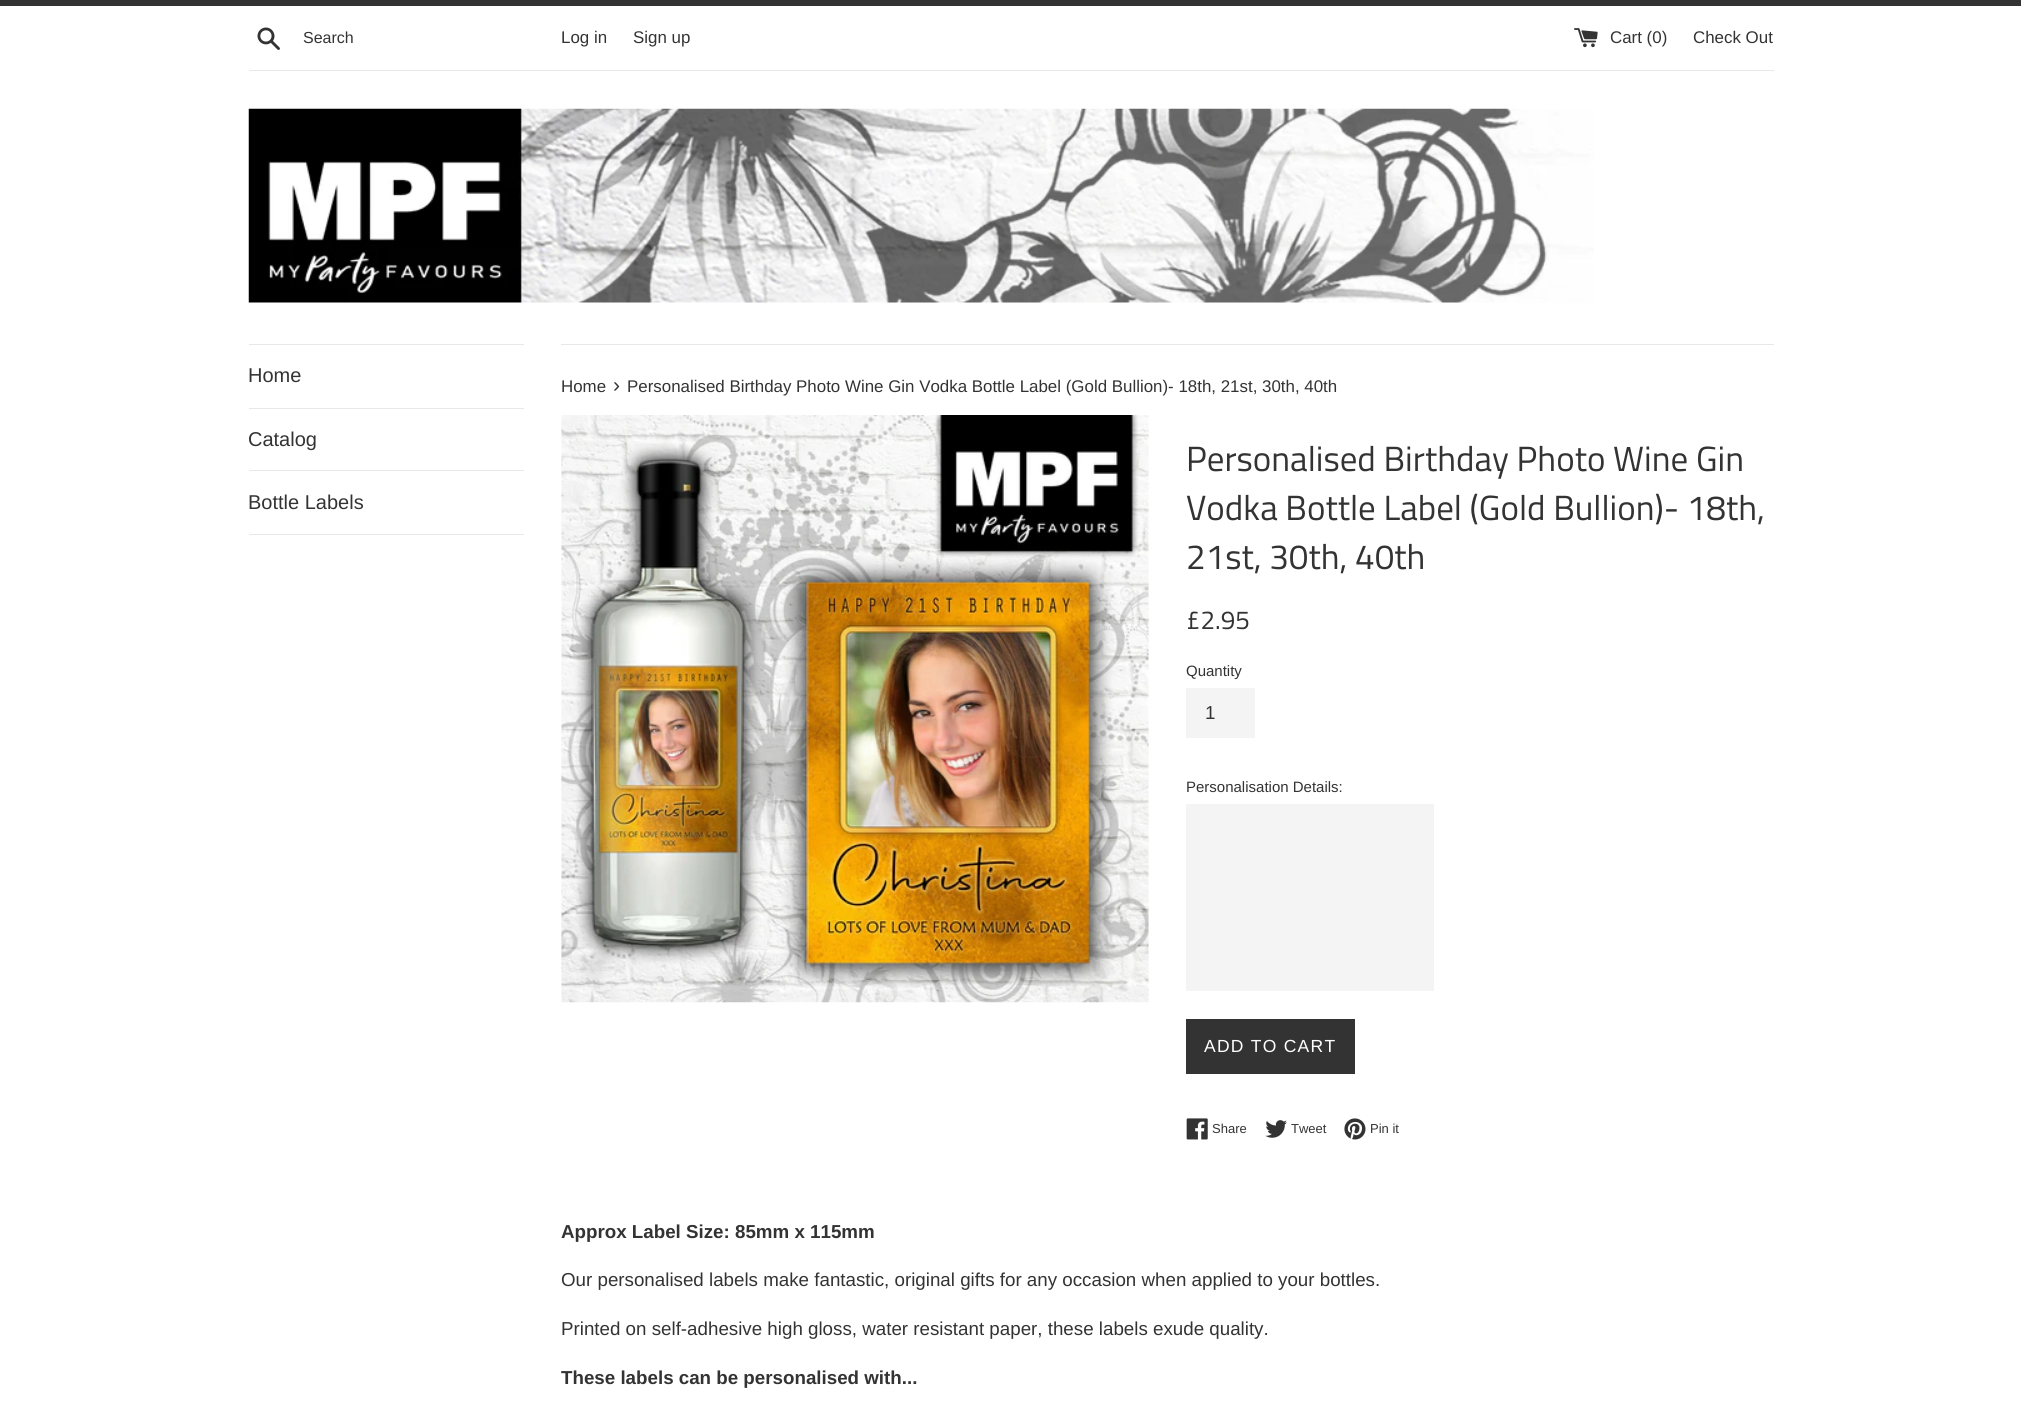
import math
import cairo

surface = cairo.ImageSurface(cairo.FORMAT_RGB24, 2021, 1412)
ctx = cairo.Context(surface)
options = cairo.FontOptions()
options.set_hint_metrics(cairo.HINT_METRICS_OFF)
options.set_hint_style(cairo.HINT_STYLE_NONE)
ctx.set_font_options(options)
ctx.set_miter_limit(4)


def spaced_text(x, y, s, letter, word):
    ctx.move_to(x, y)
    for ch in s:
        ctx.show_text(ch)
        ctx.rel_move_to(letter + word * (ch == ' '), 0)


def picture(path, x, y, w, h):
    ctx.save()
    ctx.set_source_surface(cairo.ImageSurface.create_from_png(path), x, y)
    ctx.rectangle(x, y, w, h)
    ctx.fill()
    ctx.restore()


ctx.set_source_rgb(1, 1, 1)
ctx.paint()
ctx.set_source_rgb(0.2, 0.2, 0.2)
ctx.rectangle(0, 0, 2021, 6)
ctx.fill()
picture("img1.png", 257, 27, 23, 23)
ctx.select_font_face("Liberation Sans")
ctx.set_font_size(16)
ctx.move_to(303, 43)
ctx.show_text("Search")
ctx.set_font_size(16.9)
ctx.move_to(561, 43)
ctx.show_text("Log in")
ctx.move_to(633, 43)
ctx.show_text("Sign up")
picture("img2.png", 1574, 28, 24, 20)
ctx.move_to(1610, 43)
ctx.show_text("Cart (0)")
ctx.move_to(1693, 43)
ctx.show_text("Check Out")
ctx.set_source_rgb(0.91, 0.91, 0.91)
ctx.rectangle(249, 70, 1525, 1)
ctx.fill()
picture("img3.png", 248, 108, 1346, 195)
ctx.rectangle(249, 344, 275, 1)
ctx.fill()
ctx.rectangle(249, 408, 275, 1)
ctx.fill()
ctx.set_font_size(20)
ctx.set_source_rgb(0.2, 0.2, 0.2)
ctx.move_to(248, 382)
ctx.show_text("Home")
ctx.set_source_rgb(0.91, 0.91, 0.91)
ctx.rectangle(249, 470, 275, 1)
ctx.fill()
ctx.set_source_rgb(0.2, 0.2, 0.2)
ctx.move_to(248, 446)
ctx.show_text("Catalog")
ctx.set_source_rgb(0.91, 0.91, 0.91)
ctx.rectangle(249, 534, 275, 1)
ctx.fill()
ctx.set_source_rgb(0.2, 0.2, 0.2)
ctx.move_to(248, 509)
ctx.show_text("Bottle Labels")
ctx.set_source_rgb(0.91, 0.91, 0.91)
ctx.rectangle(561, 344, 1213, 1)
ctx.fill()
ctx.set_font_size(16.9)
ctx.set_source_rgb(0.2, 0.2, 0.2)
ctx.move_to(561, 392)
ctx.show_text("Home")
ctx.set_font_size(21)
ctx.move_to(613, 392)
ctx.show_text("›")
ctx.set_font_size(16.9)
ctx.move_to(627, 392)
ctx.show_text("Personalised Birthday Photo Wine Gin Vodka Bottle Label (Gold Bullion)- 18th, 21st, 30th, 40th")
picture("img4.png", 561, 415, 588, 588)
ctx.select_font_face("Titillium Web")
ctx.set_font_size(35)
ctx.move_to(1186, 471)
ctx.show_text("Personalised Birthday Photo Wine Gin")
ctx.move_to(1186, 520)
ctx.show_text("Vodka Bottle Label (Gold Bullion)- 18th,")
ctx.move_to(1186, 569)
ctx.show_text("21st, 30th, 40th")
ctx.set_font_size(26)
ctx.move_to(1186, 629)
ctx.show_text("£2.95")
ctx.select_font_face("Liberation Sans")
ctx.set_font_size(15)
ctx.move_to(1186, 676)
ctx.show_text("Quantity")
ctx.set_source_rgb(0.957, 0.957, 0.957)
ctx.rectangle(1186, 688, 69, 50)
ctx.fill()
ctx.set_font_size(18.75)
ctx.set_source_rgb(0.2, 0.2, 0.2)
ctx.move_to(1205, 719)
ctx.show_text("1")
ctx.set_font_size(15)
ctx.move_to(1186, 792)
ctx.show_text("Personalisation Details:")
ctx.set_source_rgb(0.957, 0.957, 0.957)
ctx.rectangle(1186, 804, 248, 187)
ctx.fill()
ctx.set_source_rgb(0.2, 0.2, 0.2)
ctx.rectangle(1186, 1019, 169, 55)
ctx.fill()
ctx.set_font_size(17.5)
ctx.set_source_rgb(1, 1, 1)
spaced_text(1204, 1052, "ADD TO CART", 1.25, 0)
picture("img5.png", 1186, 1118, 22, 22)
ctx.set_font_size(13)
ctx.set_source_rgb(0.2, 0.2, 0.2)
ctx.move_to(1212, 1133)
ctx.show_text("Share")
picture("img6.png", 1265, 1120, 22, 18)
ctx.move_to(1291, 1133)
ctx.show_text("Tweet")
picture("img7.png", 1344, 1118, 22, 22)
ctx.move_to(1370, 1133)
ctx.show_text("Pin it")
ctx.select_font_face("Liberation Sans", cairo.FONT_SLANT_NORMAL, cairo.FONT_WEIGHT_BOLD)
ctx.set_font_size(18.75)
ctx.move_to(561, 1238)
ctx.show_text("Approx Label Size: 85mm x 115mm")
ctx.select_font_face("Liberation Sans")
ctx.move_to(561, 1286)
ctx.show_text("Our personalised labels make fantastic, original gifts for any occasion when applied to your bottles.")
ctx.move_to(561, 1335)
ctx.show_text("Printed on self-adhesive high gloss, water resistant paper, these labels exude quality.")
ctx.select_font_face("Liberation Sans", cairo.FONT_SLANT_NORMAL, cairo.FONT_WEIGHT_BOLD)
ctx.move_to(561, 1384)
ctx.show_text("These labels can be personalised with...")
surface.write_to_png("page.png")
